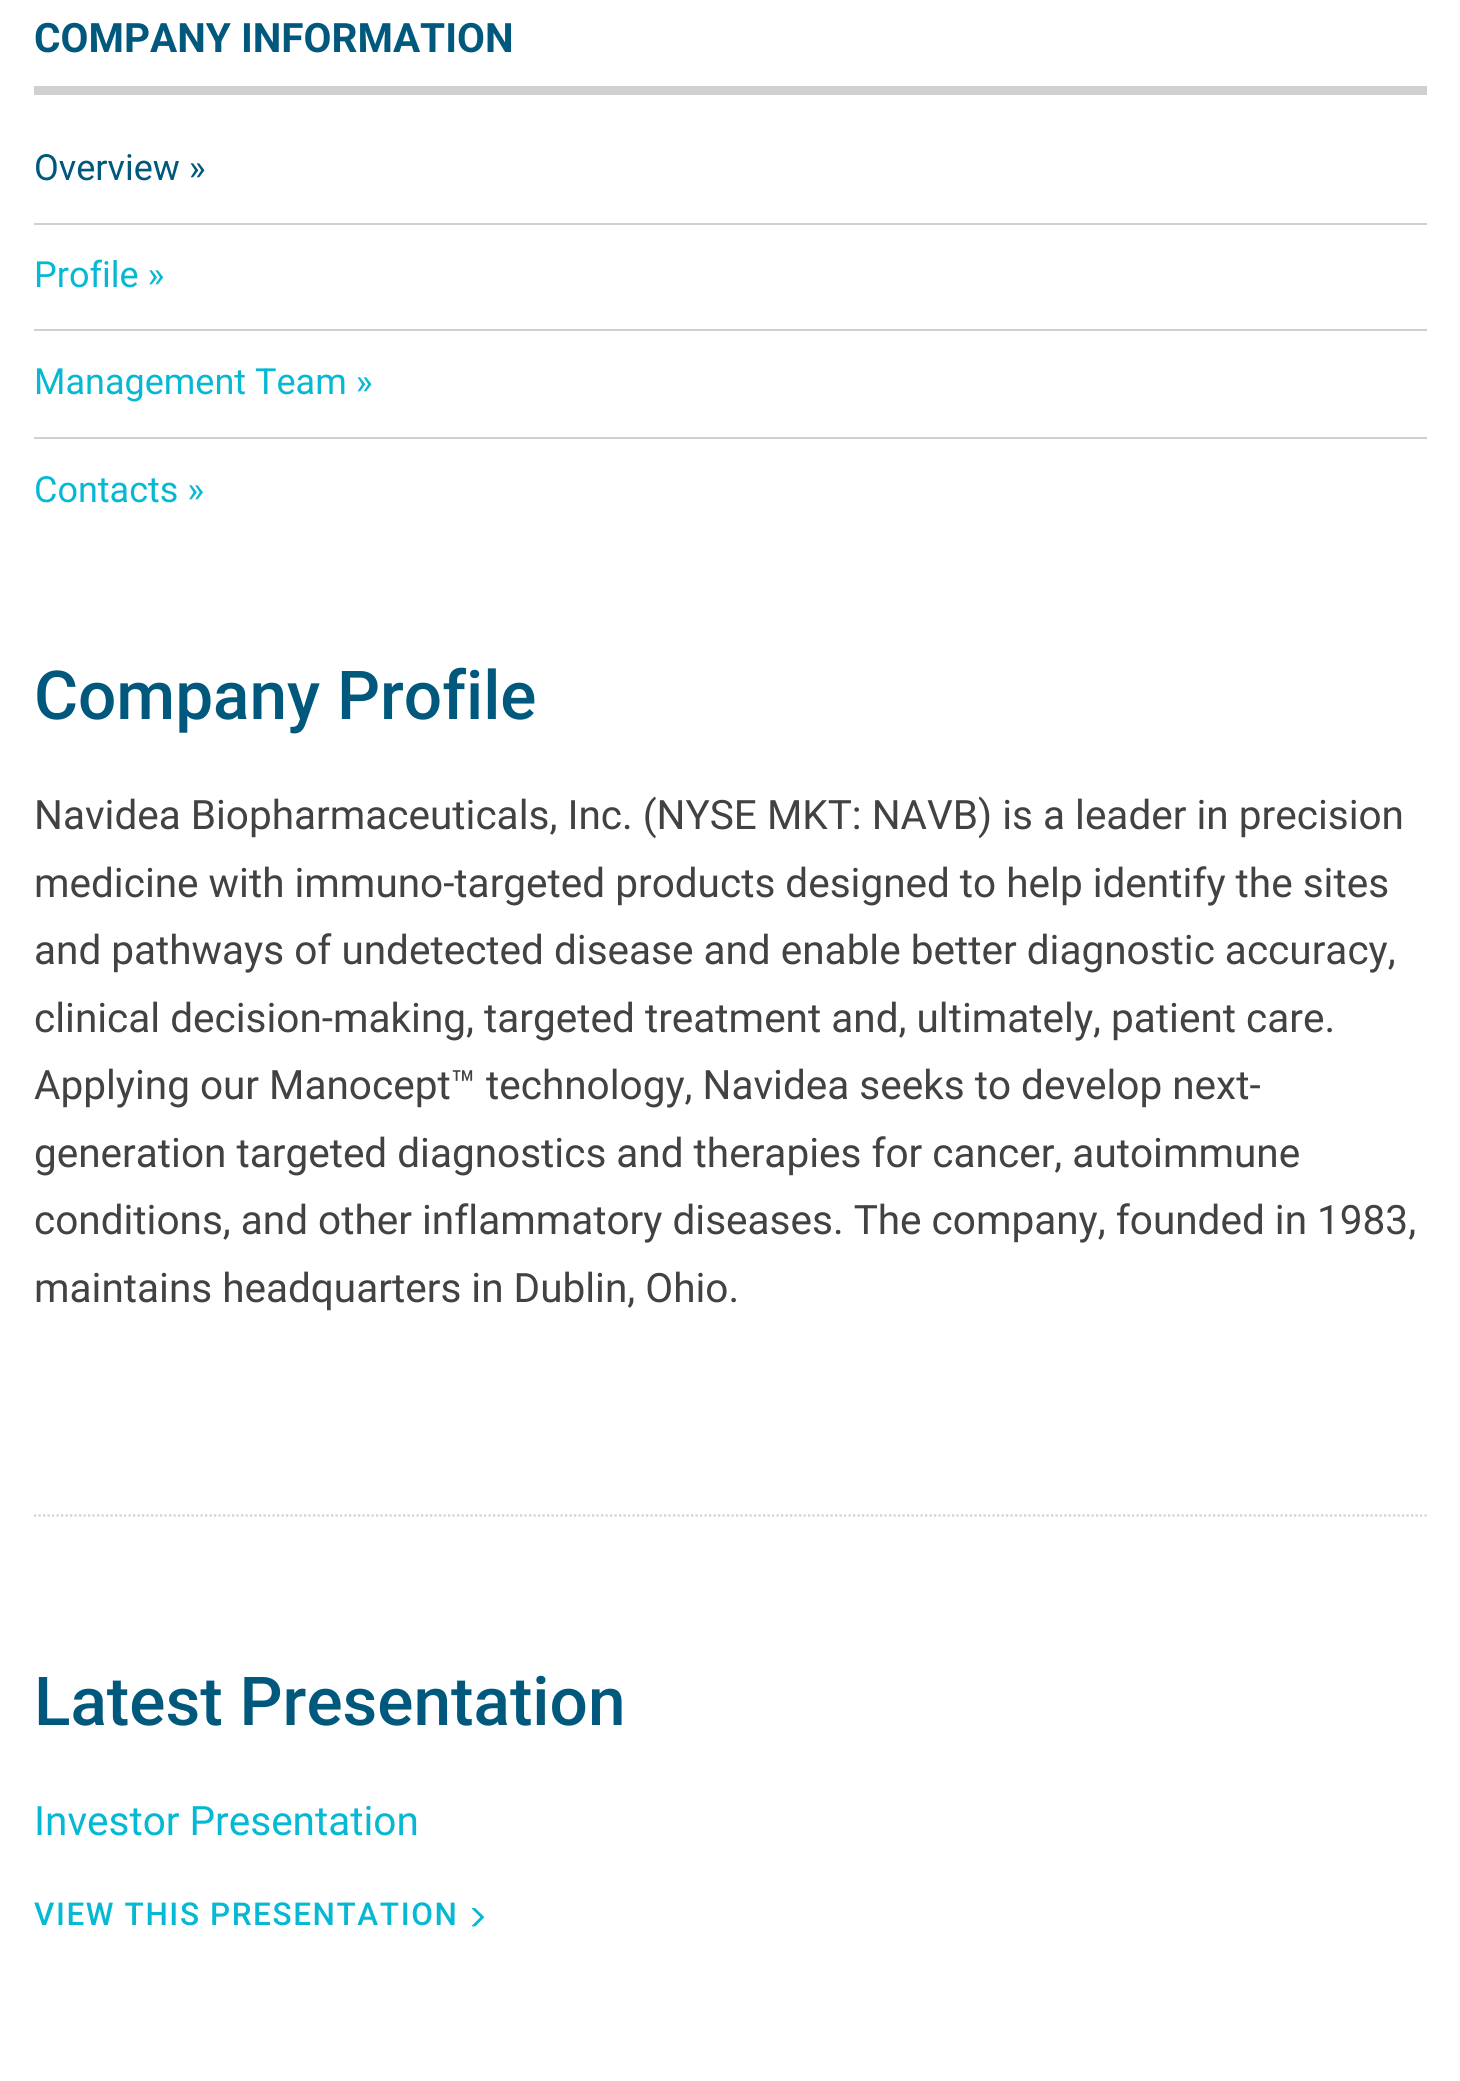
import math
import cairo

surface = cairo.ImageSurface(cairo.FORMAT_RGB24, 1460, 2081)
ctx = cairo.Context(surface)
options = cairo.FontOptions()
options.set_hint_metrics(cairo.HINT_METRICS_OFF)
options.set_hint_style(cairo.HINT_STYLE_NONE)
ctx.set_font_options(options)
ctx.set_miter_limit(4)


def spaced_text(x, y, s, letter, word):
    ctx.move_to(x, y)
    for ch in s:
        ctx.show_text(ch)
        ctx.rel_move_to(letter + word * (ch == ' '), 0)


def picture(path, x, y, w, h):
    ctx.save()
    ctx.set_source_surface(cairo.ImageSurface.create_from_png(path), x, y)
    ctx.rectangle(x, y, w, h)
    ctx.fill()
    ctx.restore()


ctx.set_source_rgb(1, 1, 1)
ctx.paint()
ctx.set_source_rgb(0.816, 0.816, 0.816)
ctx.rectangle(34, 86, 1393, 9)
ctx.fill()
ctx.select_font_face("Roboto", cairo.FONT_SLANT_NORMAL, cairo.FONT_WEIGHT_BOLD)
ctx.set_font_size(40.5)
ctx.set_source_rgb(0, 0.345, 0.486)
ctx.move_to(34, 52)
ctx.show_text("COMPANY INFORMATION")
ctx.set_source_rgb(0.816, 0.816, 0.816)
ctx.rectangle(34, 223, 1393, 2)
ctx.fill()
ctx.select_font_face("Roboto")
ctx.set_font_size(36)
ctx.set_source_rgb(0, 0.345, 0.486)
ctx.move_to(34, 180)
ctx.show_text("Overview »")
ctx.set_source_rgb(0.816, 0.816, 0.816)
ctx.rectangle(34, 329, 1393, 2)
ctx.fill()
ctx.set_source_rgb(0.027, 0.722, 0.827)
ctx.move_to(34, 287)
ctx.show_text("Profile »")
ctx.set_source_rgb(0.816, 0.816, 0.816)
ctx.rectangle(34, 437, 1393, 2)
ctx.fill()
ctx.set_source_rgb(0.027, 0.722, 0.827)
ctx.move_to(34, 394)
ctx.show_text("Management Team »")
ctx.move_to(34, 502)
ctx.show_text("Contacts »")
ctx.select_font_face("Roboto Medium")
ctx.set_font_size(67.5)
ctx.set_source_rgb(0, 0.345, 0.486)
ctx.move_to(34, 719)
ctx.show_text("Company Profile")
ctx.select_font_face("Roboto")
ctx.set_font_size(40.5)
ctx.set_source_rgb(0.259, 0.259, 0.259)
ctx.move_to(34, 829)
ctx.show_text("Navidea Biopharmaceuticals, Inc. (NYSE MKT: NAVB) is a leader in precision")
ctx.move_to(34, 897)
ctx.show_text("medicine with immuno-targeted products designed to help identify the sites")
ctx.move_to(34, 964)
ctx.show_text("and pathways of undetected disease and enable better diagnostic accuracy,")
ctx.move_to(34, 1032)
ctx.show_text("clinical decision-making, targeted treatment and, ultimately, patient care.")
ctx.move_to(34, 1099)
ctx.show_text("Applying our Manocept™ technology, Navidea seeks to develop next-")
ctx.move_to(34, 1167)
ctx.show_text("generation targeted diagnostics and therapies for cancer, autoimmune")
ctx.move_to(34, 1234)
ctx.show_text("conditions, and other inflammatory diseases. The company, founded in 1983,")
ctx.move_to(34, 1302)
ctx.show_text("maintains headquarters in Dublin, Ohio.")
ctx.new_path()
ctx.move_to(34, 1515.5)
ctx.line_to(1426.5, 1515.5)
ctx.set_source_rgb(0.816, 0.816, 0.816)
ctx.set_line_width(2.2)
ctx.set_dash([2.25, 2.25])
ctx.stroke()
ctx.select_font_face("Roboto Medium")
ctx.set_font_size(67.5)
ctx.set_source_rgb(0, 0.345, 0.486)
ctx.move_to(34, 1725)
ctx.show_text("Latest Presentation")
ctx.select_font_face("Roboto")
ctx.set_font_size(40.5)
ctx.set_source_rgb(0.027, 0.722, 0.827)
ctx.move_to(34, 1835)
ctx.show_text("Investor Presentation")
ctx.select_font_face("Roboto Medium")
ctx.set_font_size(31.5)
spaced_text(34, 1925, "VIEW THIS PRESENTATION", 1.6, 0)
picture("img1.png", 471, 1908, 14, 19)
surface.write_to_png("page.png")
